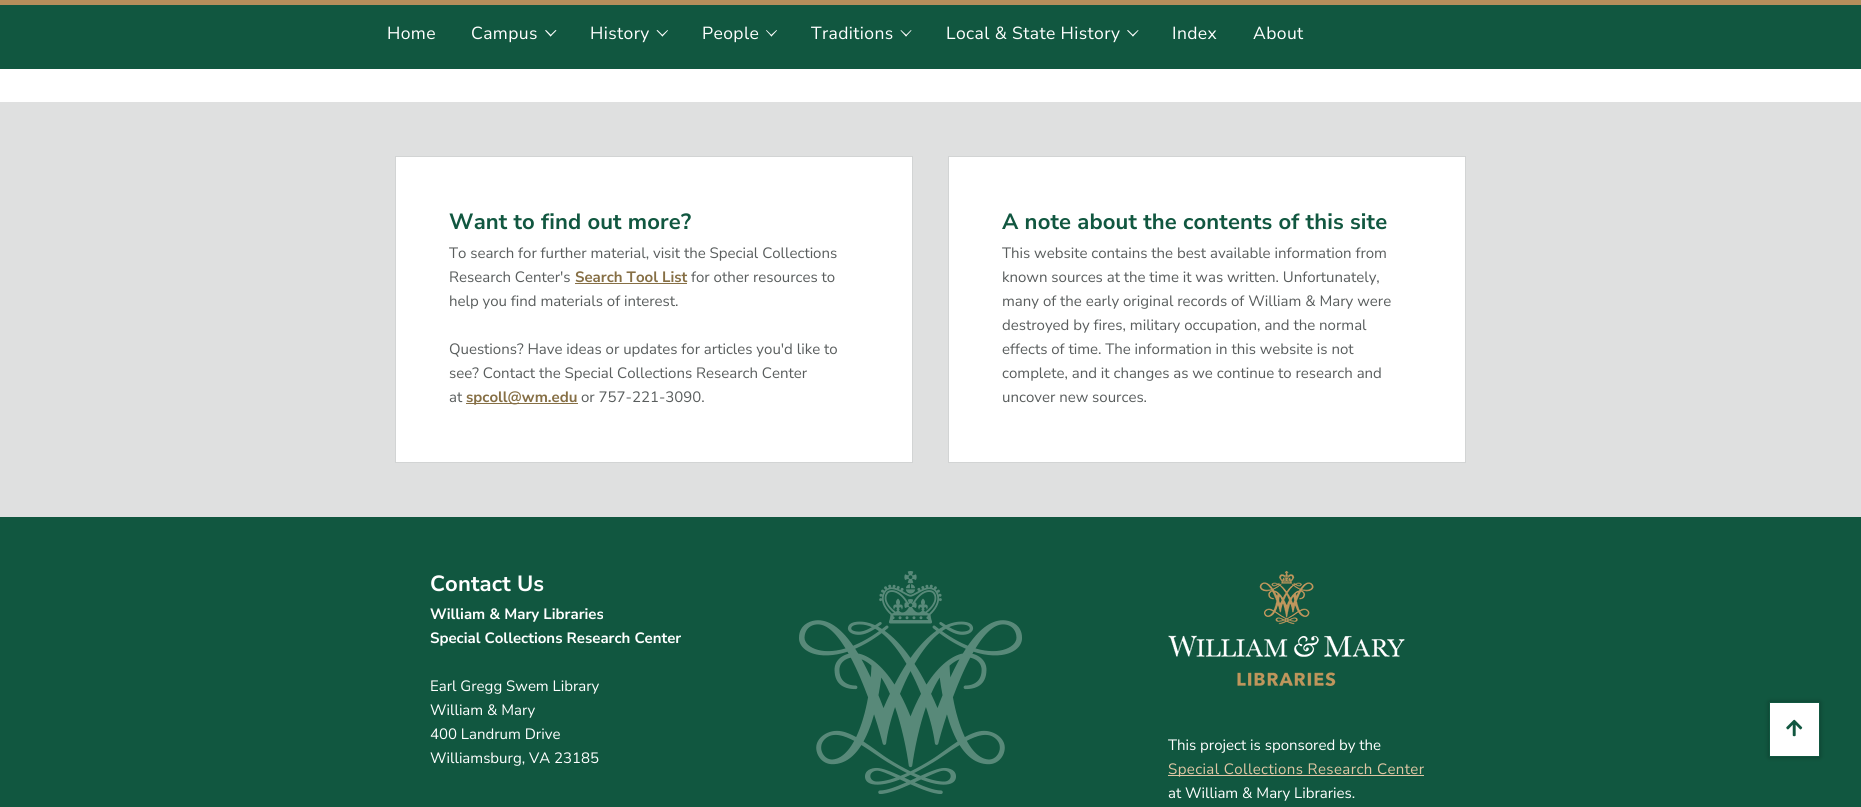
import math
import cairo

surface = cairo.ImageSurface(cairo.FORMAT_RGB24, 1861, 807)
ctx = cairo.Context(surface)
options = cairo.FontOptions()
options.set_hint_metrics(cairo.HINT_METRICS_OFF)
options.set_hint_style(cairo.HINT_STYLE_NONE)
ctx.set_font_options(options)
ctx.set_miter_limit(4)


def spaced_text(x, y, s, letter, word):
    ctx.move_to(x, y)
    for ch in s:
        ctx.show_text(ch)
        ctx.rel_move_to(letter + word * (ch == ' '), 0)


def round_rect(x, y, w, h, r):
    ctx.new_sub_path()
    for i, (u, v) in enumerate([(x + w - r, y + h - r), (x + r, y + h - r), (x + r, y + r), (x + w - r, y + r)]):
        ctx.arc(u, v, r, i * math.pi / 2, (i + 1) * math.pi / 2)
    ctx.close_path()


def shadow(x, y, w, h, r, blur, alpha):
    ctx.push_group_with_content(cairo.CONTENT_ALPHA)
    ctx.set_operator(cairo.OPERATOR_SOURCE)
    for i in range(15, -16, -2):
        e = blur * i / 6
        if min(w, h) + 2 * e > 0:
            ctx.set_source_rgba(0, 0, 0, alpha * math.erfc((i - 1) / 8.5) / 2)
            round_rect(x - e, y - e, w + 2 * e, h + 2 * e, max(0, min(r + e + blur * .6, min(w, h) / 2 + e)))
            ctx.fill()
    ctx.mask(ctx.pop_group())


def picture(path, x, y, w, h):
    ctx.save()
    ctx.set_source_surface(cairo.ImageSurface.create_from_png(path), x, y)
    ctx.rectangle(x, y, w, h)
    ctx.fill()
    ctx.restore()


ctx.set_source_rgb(1, 1, 1)
ctx.paint()
ctx.set_source_rgb(0.067, 0.341, 0.251)
ctx.rectangle(0, 5, 1861, 64)
ctx.fill()
ctx.set_source_rgb(0.71, 0.557, 0.357)
ctx.rectangle(0, 0, 1861, 5)
ctx.fill()
ctx.select_font_face("Nunito Sans")
ctx.set_font_size(17.5)
ctx.set_source_rgb(1, 1, 1)
spaced_text(387, 39, "Home", 0.4, 0)
spaced_text(471, 39, "Campus", 0.4, 0)
ctx.new_path()
ctx.move_to(555.5, 30)
ctx.line_to(556.5, 30.5)
ctx.line_to(550.5, 36.5)
ctx.line_to(550, 35.5)
ctx.close_path()
ctx.fill()
ctx.new_path()
ctx.move_to(546, 30)
ctx.line_to(551.5, 35.5)
ctx.line_to(550.5, 36.5)
ctx.line_to(545, 30.5)
ctx.close_path()
ctx.fill()
spaced_text(590, 39, "History", 0.4, 0)
ctx.new_path()
ctx.move_to(667.5, 30)
ctx.line_to(668, 30.5)
ctx.line_to(662.5, 36.5)
ctx.line_to(661.5, 35.5)
ctx.close_path()
ctx.fill()
ctx.new_path()
ctx.move_to(657.5, 30)
ctx.line_to(663, 35.5)
ctx.line_to(662.5, 36.5)
ctx.line_to(656.5, 30.5)
ctx.close_path()
ctx.fill()
spaced_text(702, 39, "People", 0.4, 0)
ctx.new_path()
ctx.move_to(776.5, 30)
ctx.line_to(777, 30.5)
ctx.line_to(771.5, 36.5)
ctx.line_to(770.5, 35.5)
ctx.close_path()
ctx.fill()
ctx.new_path()
ctx.move_to(766.5, 30)
ctx.line_to(772, 35.5)
ctx.line_to(771.5, 36.5)
ctx.line_to(766, 30.5)
ctx.close_path()
ctx.fill()
spaced_text(811, 39, "Traditions", 0.4, 0)
ctx.new_path()
ctx.move_to(911, 30)
ctx.line_to(911.5, 30.5)
ctx.line_to(906, 36.5)
ctx.line_to(905.5, 35.5)
ctx.close_path()
ctx.fill()
ctx.new_path()
ctx.move_to(901, 30)
ctx.line_to(907, 35.5)
ctx.line_to(906, 36.5)
ctx.line_to(900.5, 30.5)
ctx.close_path()
ctx.fill()
spaced_text(946, 39, "Local & State History", 0.4, 0)
ctx.new_path()
ctx.move_to(1138, 30)
ctx.line_to(1138.5, 30.5)
ctx.line_to(1133, 36.5)
ctx.line_to(1132, 35.5)
ctx.close_path()
ctx.fill()
ctx.new_path()
ctx.move_to(1128, 30)
ctx.line_to(1133.5, 35.5)
ctx.line_to(1133, 36.5)
ctx.line_to(1127, 30.5)
ctx.close_path()
ctx.fill()
spaced_text(1172, 39, "Index", 0.4, 0)
spaced_text(1253, 39, "About", 0.4, 0)
ctx.set_source_rgb(0.875, 0.878, 0.878)
ctx.rectangle(0, 102, 1861, 415)
ctx.fill()
ctx.set_source_rgb(1, 1, 1)
ctx.rectangle(395.5, 156.5, 517, 306)
ctx.fill_preserve()
ctx.set_source_rgb(0.824, 0.831, 0.831)
ctx.set_line_width(1)
ctx.stroke()
ctx.select_font_face("Nunito Sans", cairo.FONT_SLANT_NORMAL, cairo.FONT_WEIGHT_BOLD)
ctx.set_font_size(22)
ctx.set_source_rgb(0.067, 0.341, 0.251)
spaced_text(449, 229, "Want to find out more?", 0.15, 0)
ctx.select_font_face("Nunito Sans")
ctx.set_font_size(15)
ctx.set_source_rgb(0.349, 0.365, 0.365)
ctx.move_to(449, 258)
ctx.show_text("To search for further material, visit the Special Collections")
ctx.move_to(449, 282)
ctx.show_text("Research Center's")
ctx.select_font_face("Nunito Sans", cairo.FONT_SLANT_NORMAL, cairo.FONT_WEIGHT_BOLD)
ctx.set_source_rgb(0.525, 0.435, 0.271)
ctx.move_to(575, 282)
ctx.show_text("Search Tool List")
ctx.rectangle(575, 283, 112, 1)
ctx.fill()
ctx.select_font_face("Nunito Sans")
ctx.set_source_rgb(0.349, 0.365, 0.365)
ctx.move_to(691, 282)
ctx.show_text("for other resources to")
ctx.move_to(449, 306)
ctx.show_text("help you find materials of interest.")
ctx.move_to(449, 354)
ctx.show_text("Questions? Have ideas or updates for articles you'd like to")
ctx.move_to(449, 378)
ctx.show_text("see? Contact the Special Collections Research Center")
ctx.move_to(449, 402)
ctx.show_text("at")
ctx.set_source_rgb(0.525, 0.435, 0.271)
ctx.rectangle(466, 403, 112, 1)
ctx.fill()
ctx.select_font_face("Nunito Sans", cairo.FONT_SLANT_NORMAL, cairo.FONT_WEIGHT_BOLD)
ctx.move_to(466, 402)
ctx.show_text("spcoll@wm.edu")
ctx.select_font_face("Nunito Sans")
ctx.set_source_rgb(0.349, 0.365, 0.365)
ctx.move_to(581, 402)
ctx.show_text("or 757-221-3090.")
ctx.set_source_rgb(1, 1, 1)
ctx.rectangle(948.5, 156.5, 517, 306)
ctx.fill_preserve()
ctx.set_source_rgb(0.824, 0.831, 0.831)
ctx.stroke()
ctx.select_font_face("Nunito Sans", cairo.FONT_SLANT_NORMAL, cairo.FONT_WEIGHT_BOLD)
ctx.set_font_size(22)
ctx.set_source_rgb(0.067, 0.341, 0.251)
spaced_text(1002, 229, "A note about the contents of this site", 0.15, 0)
ctx.select_font_face("Nunito Sans")
ctx.set_font_size(15)
ctx.set_source_rgb(0.349, 0.365, 0.365)
ctx.move_to(1002, 258)
ctx.show_text("This website contains the best available information from")
ctx.move_to(1002, 282)
ctx.show_text("known sources at the time it was written. Unfortunately,")
ctx.move_to(1002, 306)
ctx.show_text("many of the early original records of William & Mary were")
ctx.move_to(1002, 330)
ctx.show_text("destroyed by fires, military occupation, and the normal")
ctx.move_to(1002, 354)
ctx.show_text("effects of time. The information in this website is not")
ctx.move_to(1002, 378)
ctx.show_text("complete, and it changes as we continue to research and")
ctx.move_to(1002, 402)
ctx.show_text("uncover new sources.")
ctx.set_source_rgb(0.067, 0.341, 0.251)
ctx.rectangle(0, 517, 1861, 290)
ctx.fill()
ctx.select_font_face("Nunito Sans", cairo.FONT_SLANT_NORMAL, cairo.FONT_WEIGHT_BOLD)
ctx.set_font_size(22)
ctx.set_source_rgb(1, 1, 1)
spaced_text(430, 591, "Contact Us", 0.15, 0)
ctx.set_font_size(15)
ctx.move_to(430, 619)
ctx.show_text("William & Mary Libraries")
ctx.move_to(430, 643)
ctx.show_text("Special Collections Research Center")
ctx.select_font_face("Nunito Sans")
ctx.move_to(430, 691)
ctx.show_text("Earl Gregg Swem Library")
ctx.move_to(430, 715)
ctx.show_text("William & Mary")
ctx.move_to(430, 739)
ctx.show_text("400 Landrum Drive")
ctx.move_to(430, 763)
ctx.show_text("Williamsburg, VA 23185")
picture("img1.png", 799, 571, 223, 223)
picture("img2.png", 1168, 571, 237, 115)
ctx.move_to(1168, 750)
ctx.show_text("This project is sponsored by the")
ctx.set_source_rgb(0.878, 0.776, 0.643)
ctx.rectangle(1168, 775, 256, 1)
ctx.fill()
spaced_text(1168, 774, "Special Collections Research Center", 0.4, 0)
ctx.set_source_rgb(1, 1, 1)
ctx.move_to(1168, 798)
ctx.show_text("at William & Mary Libraries.")
ctx.set_source_rgb(0, 0, 0)
shadow(1769, 702, 51, 55, 0, 2.5, 0.3)
ctx.set_source_rgb(1, 1, 1)
ctx.rectangle(1769.5, 702.5, 50, 54)
ctx.fill_preserve()
ctx.set_source_rgb(0.067, 0.341, 0.251)
ctx.stroke()
picture("img3.png", 1786, 719, 17, 18)
surface.write_to_png("page.png")
